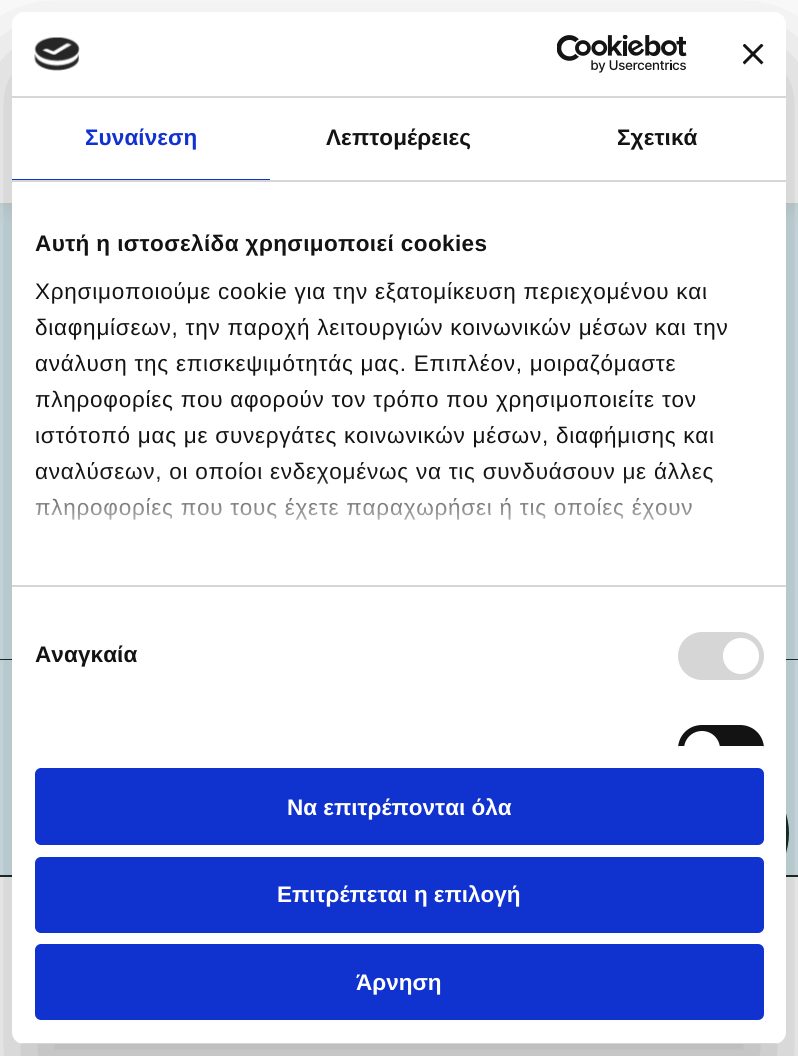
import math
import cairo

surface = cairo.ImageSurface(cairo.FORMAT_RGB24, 798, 1056)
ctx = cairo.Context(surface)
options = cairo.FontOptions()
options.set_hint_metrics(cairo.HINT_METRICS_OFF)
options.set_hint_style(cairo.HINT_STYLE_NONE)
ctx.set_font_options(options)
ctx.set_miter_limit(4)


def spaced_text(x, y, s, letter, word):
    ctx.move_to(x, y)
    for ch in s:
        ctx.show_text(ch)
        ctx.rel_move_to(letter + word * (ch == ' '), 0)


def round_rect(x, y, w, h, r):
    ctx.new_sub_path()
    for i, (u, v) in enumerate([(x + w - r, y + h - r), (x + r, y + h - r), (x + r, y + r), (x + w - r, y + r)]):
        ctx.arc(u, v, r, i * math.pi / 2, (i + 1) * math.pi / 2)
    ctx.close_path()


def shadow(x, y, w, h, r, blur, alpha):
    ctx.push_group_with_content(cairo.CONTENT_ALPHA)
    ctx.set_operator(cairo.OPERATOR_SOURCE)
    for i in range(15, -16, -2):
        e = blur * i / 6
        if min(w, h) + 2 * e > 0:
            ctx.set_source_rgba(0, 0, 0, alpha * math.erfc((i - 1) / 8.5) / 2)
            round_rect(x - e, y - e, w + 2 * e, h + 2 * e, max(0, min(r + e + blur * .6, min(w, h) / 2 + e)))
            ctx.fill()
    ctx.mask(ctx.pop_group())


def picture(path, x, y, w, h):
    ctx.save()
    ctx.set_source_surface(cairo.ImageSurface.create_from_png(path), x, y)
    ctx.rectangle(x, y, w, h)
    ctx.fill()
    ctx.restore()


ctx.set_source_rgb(1, 1, 1)
ctx.paint()
ctx.set_source_rgb(0.847, 0.922, 0.945)
ctx.rectangle(0, 203, 798, 456)
ctx.fill()
ctx.set_source_rgb(0.761, 0.761, 0.761)
shadow(11, 18, 777, 182, 0, 13, 1)
ctx.set_source_rgb(1, 1, 1)
ctx.rectangle(0, 0, 798, 203)
ctx.fill()
ctx.set_source_rgb(0.102, 0.188, 0.161)
ctx.rectangle(0, 659, 798, 1)
ctx.fill()
ctx.set_source_rgb(0.847, 0.922, 0.945)
ctx.rectangle(0, 660, 798, 215)
ctx.fill()
ctx.set_source_rgb(0.102, 0.188, 0.161)
ctx.rectangle(0, 875, 798, 2)
ctx.fill()
picture("img1.png", 786, 814, 3, 39)
ctx.set_source_rgb(0, 0, 0)
shadow(12, 60, 774, 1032, 12, 51, 0.3)
ctx.set_source_rgb(1, 1, 1)
round_rect(12, 12, 774, 1032, 12)
ctx.fill()
ctx.set_source_rgb(0.839, 0.839, 0.839)
ctx.rectangle(12, 96, 774, 2)
ctx.fill()
picture("img2.png", 34, 37, 46, 34)
picture("img3.png", 557, 35, 130, 38)
picture("img4.png", 743, 44, 21, 21)
ctx.rectangle(12, 180, 774, 2)
ctx.fill()
ctx.set_source_rgb(0.063, 0.196, 0.812)
ctx.rectangle(12, 179, 258, 1)
ctx.fill()
ctx.select_font_face("Liberation Sans", cairo.FONT_SLANT_NORMAL, cairo.FONT_WEIGHT_BOLD)
ctx.set_font_size(22.5)
spaced_text(85, 145, "Συναίνεση", 0.1, 0)
ctx.set_source_rgb(0.078, 0.078, 0.078)
spaced_text(326, 145, "Λεπτομέρειες", 0.1, 0)
spaced_text(617, 145, "Σχετικά", 0.1, 0)
ctx.set_source_rgb(0.839, 0.839, 0.839)
ctx.rectangle(12, 585, 774, 2)
ctx.fill()
ctx.set_source_rgb(0.078, 0.078, 0.078)
spaced_text(35, 251, "Αυτή η ιστοσελίδα χρησιμοποιεί cookies", 0.4, 0)
ctx.select_font_face("Liberation Sans")
spaced_text(35, 299, "Χρησιμοποιούμε cookie για την εξατομίκευση περιεχομένου και", 0.75, 0)
spaced_text(35, 335, "διαφημίσεων, την παροχή λειτουργιών κοινωνικών μέσων και την", 0.75, 0)
spaced_text(35, 371, "ανάλυση της επισκεψιμότητάς μας. Επιπλέον, μοιραζόμαστε", 0.75, 0)
spaced_text(35, 407, "πληροφορίες που αφορούν τον τρόπο που χρησιμοποιείτε τον", 0.75, 0)
spaced_text(35, 443, "ιστότοπό μας με συνεργάτες κοινωνικών μέσων, διαφήμισης και", 0.75, 0)
spaced_text(35, 479, "αναλύσεων, οι οποίοι ενδεχομένως να τις συνδυάσουν με άλλες", 0.75, 0)
spaced_text(35, 515, "πληροφορίες που τους έχετε παραχωρήσει ή τις οποίες έχουν", 0.75, 0)
gradient = cairo.LinearGradient(389, 585, 389, 473)
gradient.add_color_stop_rgba(0, 1, 1, 1, 1)
gradient.add_color_stop_rgba(0.5, 1, 1, 1, 0.8)
gradient.add_color_stop_rgba(1, 1, 1, 1, 0)
ctx.set_source(gradient)
ctx.rectangle(35, 475, 677, 45)
ctx.fill()
ctx.select_font_face("Liberation Sans", cairo.FONT_SLANT_NORMAL, cairo.FONT_WEIGHT_BOLD)
ctx.set_source_rgb(0.078, 0.078, 0.078)
spaced_text(35, 662, "Αναγκαία", 0.1, 0)
ctx.set_source_rgb(0.839, 0.839, 0.839)
round_rect(678, 632, 86, 48, 24)
ctx.fill()
ctx.set_source_rgb(1, 1, 1)
ctx.arc(741, 656, 18, 0, 2 * math.pi)
ctx.fill()
ctx.set_source_rgb(0.078, 0.078, 0.078)
ctx.new_path()
ctx.move_to(702, 725)
ctx.line_to(740, 725)
ctx.curve_to(753.5, 725, 764, 735.5, 764, 749)
ctx.line_to(764, 746)
ctx.line_to(678, 746)
ctx.line_to(678, 749)
ctx.curve_to(678, 735.5, 688.5, 725, 702, 725)
ctx.close_path()
ctx.fill()
ctx.set_source_rgb(1, 1, 1)
ctx.new_path()
ctx.move_to(702, 731)
ctx.curve_to(712, 731, 720, 739, 720, 749)
ctx.line_to(720, 746)
ctx.line_to(684, 746)
ctx.line_to(684, 749)
ctx.curve_to(684, 739, 692, 731, 702, 731)
ctx.close_path()
ctx.fill()
ctx.save()
round_rect(12, 12, 774, 1032, 12)
ctx.clip()
ctx.set_source_rgb(0.839, 0.839, 0.839)
ctx.rectangle(12, 1043, 774, 1)
ctx.fill()
ctx.restore()
ctx.set_source_rgb(0.063, 0.196, 0.812)
round_rect(36.5, 769.5, 726, 74, 4.5)
ctx.fill_preserve()
ctx.set_line_width(3)
ctx.stroke()
ctx.set_source_rgb(1, 1, 1)
ctx.move_to(287, 815)
ctx.show_text("Να επιτρέπονται όλα")
ctx.set_source_rgb(0.063, 0.196, 0.812)
round_rect(36.5, 858.5, 726, 73, 4.5)
ctx.fill_preserve()
ctx.stroke()
ctx.set_source_rgb(1, 1, 1)
ctx.move_to(277, 902)
ctx.show_text("Επιτρέπεται η επιλογή")
ctx.set_source_rgb(0.063, 0.196, 0.812)
round_rect(36.5, 945.5, 726, 73, 4.5)
ctx.fill_preserve()
ctx.stroke()
ctx.set_source_rgb(1, 1, 1)
ctx.move_to(356, 990)
ctx.show_text("Άρνηση")
surface.write_to_png("page.png")
